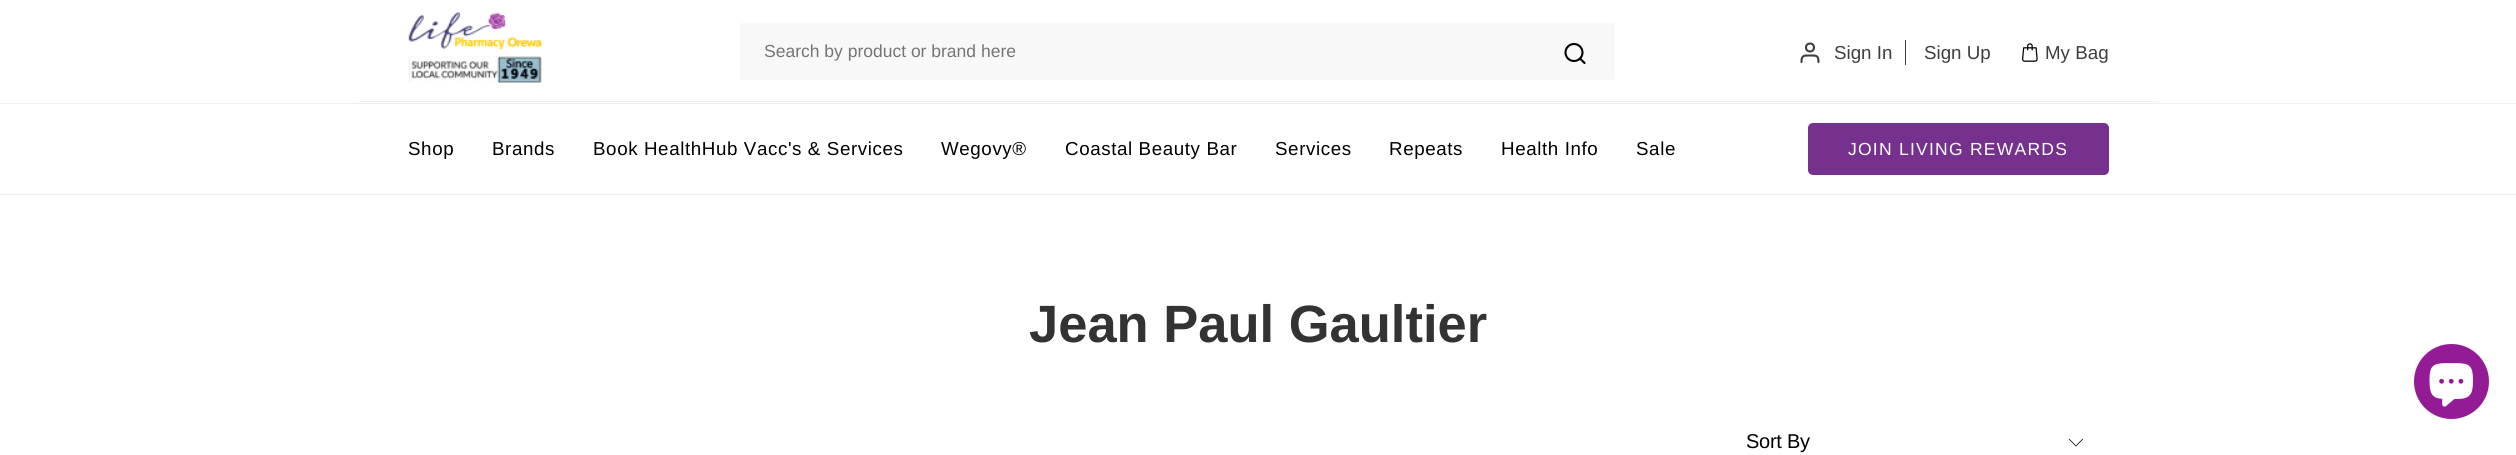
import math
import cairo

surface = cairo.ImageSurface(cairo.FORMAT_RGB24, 2516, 455)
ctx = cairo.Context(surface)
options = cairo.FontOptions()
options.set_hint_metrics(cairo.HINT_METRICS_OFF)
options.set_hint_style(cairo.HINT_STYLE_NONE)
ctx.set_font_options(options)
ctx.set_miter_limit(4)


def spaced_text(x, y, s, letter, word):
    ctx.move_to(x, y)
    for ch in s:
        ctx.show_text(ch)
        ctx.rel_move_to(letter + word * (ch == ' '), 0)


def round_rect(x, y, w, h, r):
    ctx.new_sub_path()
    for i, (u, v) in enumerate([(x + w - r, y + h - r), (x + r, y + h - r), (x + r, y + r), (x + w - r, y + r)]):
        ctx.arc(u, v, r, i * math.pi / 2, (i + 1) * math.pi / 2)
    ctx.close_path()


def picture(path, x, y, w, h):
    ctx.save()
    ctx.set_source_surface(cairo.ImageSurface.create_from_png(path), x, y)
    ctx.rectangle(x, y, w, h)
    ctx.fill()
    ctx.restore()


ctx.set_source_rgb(1, 1, 1)
ctx.paint()
ctx.set_source_rgb(0.925, 0.937, 0.945)
ctx.rectangle(359, 101, 1800, 1)
ctx.fill()
picture("img1.png", 408, 12, 134, 71)
ctx.set_source_rgb(0.969, 0.969, 0.969)
round_rect(740, 23, 875, 57, 2.5)
ctx.fill()
ctx.select_font_face("Liberation Sans")
ctx.set_font_size(17.5)
ctx.set_source_rgb(0.459, 0.459, 0.459)
ctx.move_to(764, 57)
ctx.show_text("Search by product or brand here")
ctx.new_path()
ctx.arc(1574, 52.5, 8.5, 0, 2 * math.pi)
ctx.set_source_rgb(0, 0, 0)
ctx.set_line_width(2.1)
ctx.stroke()
ctx.new_path()
ctx.move_to(1584.5, 63)
ctx.line_to(1580, 58.5)
ctx.set_line_cap(cairo.LINE_CAP_ROUND)
ctx.set_line_join(cairo.LINE_JOIN_ROUND)
ctx.stroke()
ctx.set_source_rgb(0.243, 0.243, 0.247)
ctx.rectangle(1905, 40, 1, 25)
ctx.fill()
ctx.new_path()
ctx.move_to(1818.5, 62)
ctx.curve_to(1818.5, 55, 1816, 55.5, 1810, 55.5)
ctx.curve_to(1804, 55.5, 1801.5, 55, 1801.5, 62)
ctx.stroke()
ctx.arc(1810, 47.5, 4, 0, 2 * math.pi)
ctx.set_line_cap(cairo.LINE_CAP_BUTT)
ctx.set_line_join(cairo.LINE_JOIN_MITER)
ctx.stroke()
ctx.set_font_size(18.75)
ctx.move_to(1834, 59)
ctx.show_text("Sign In")
ctx.move_to(1924, 59)
ctx.show_text("Sign Up")
picture("img2.png", 2022, 43, 16, 19)
ctx.move_to(2045, 59)
ctx.show_text("My Bag")
ctx.set_source_rgb(0.925, 0.937, 0.945)
ctx.rectangle(0, 103, 2516, 1)
ctx.fill()
ctx.rectangle(0, 194, 2516, 1)
ctx.fill()
ctx.set_source_rgb(0, 0, 0)
spaced_text(408, 155, "Shop", 0.6, 0)
spaced_text(492, 155, "Brands", 0.6, 0)
spaced_text(593, 155, "Book HealthHub Vacc's & Services", 0.6, 0)
spaced_text(941, 155, "Wegovy®", 0.6, 0)
spaced_text(1065, 155, "Coastal Beauty Bar", 0.6, 0)
spaced_text(1275, 155, "Services", 0.6, 0)
spaced_text(1389, 155, "Repeats", 0.6, 0)
spaced_text(1501, 155, "Health Info", 0.6, 0)
spaced_text(1636, 155, "Sale", 0.6, 0)
ctx.set_source_rgb(0.459, 0.192, 0.553)
round_rect(1808, 123, 301, 52, 5)
ctx.fill()
ctx.set_font_size(17.5)
ctx.set_source_rgb(1, 1, 1)
spaced_text(1848, 155, "JOIN LIVING REWARDS", 1.25, 0)
ctx.select_font_face("Liberation Sans", cairo.FONT_SLANT_NORMAL, cairo.FONT_WEIGHT_BOLD)
ctx.set_font_size(52.5)
ctx.set_source_rgb(0.2, 0.2, 0.2)
ctx.move_to(1029, 342)
ctx.show_text("Jean Paul Gaultier")
ctx.select_font_face("Liberation Sans")
ctx.set_font_size(20)
ctx.set_source_rgb(0, 0, 0)
spaced_text(1746, 448, "Sort By", -0.25, 0)
picture("img3.png", 2068, 438, 15, 9)
ctx.set_source_rgb(0.576, 0.11, 0.588)
ctx.arc(2451.5, 381.5, 37.5, 0, 2 * math.pi)
ctx.fill()
picture("img4.png", 2429, 363, 44, 44)
surface.write_to_png("page.png")
